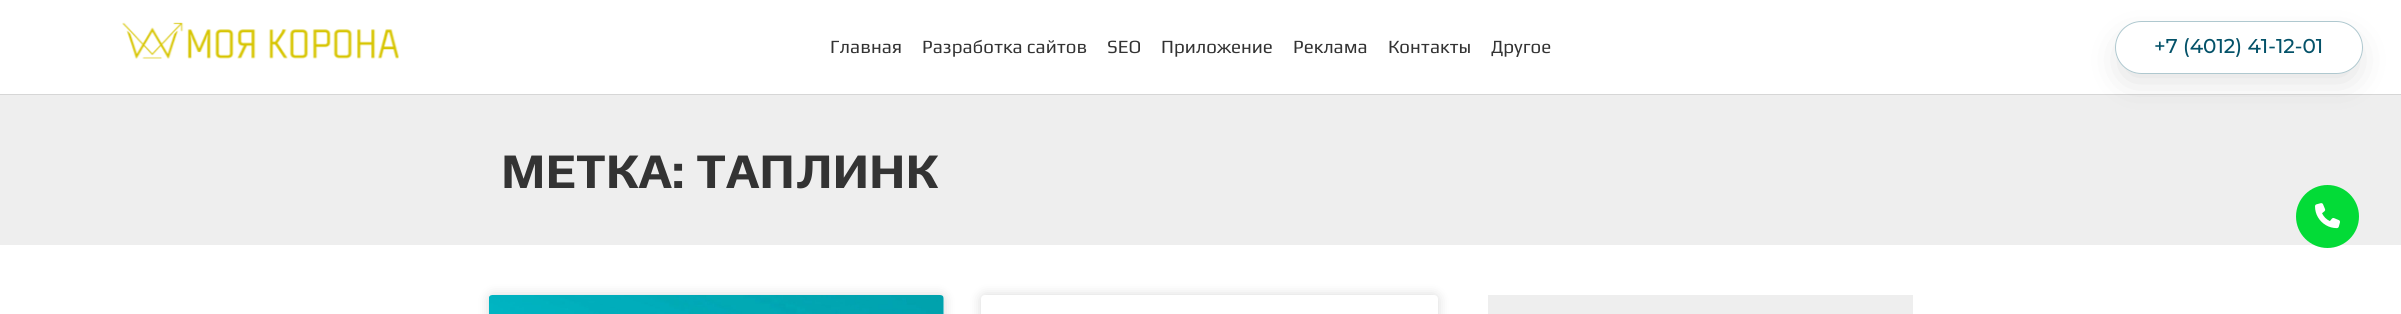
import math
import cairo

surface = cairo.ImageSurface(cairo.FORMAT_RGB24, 2401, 314)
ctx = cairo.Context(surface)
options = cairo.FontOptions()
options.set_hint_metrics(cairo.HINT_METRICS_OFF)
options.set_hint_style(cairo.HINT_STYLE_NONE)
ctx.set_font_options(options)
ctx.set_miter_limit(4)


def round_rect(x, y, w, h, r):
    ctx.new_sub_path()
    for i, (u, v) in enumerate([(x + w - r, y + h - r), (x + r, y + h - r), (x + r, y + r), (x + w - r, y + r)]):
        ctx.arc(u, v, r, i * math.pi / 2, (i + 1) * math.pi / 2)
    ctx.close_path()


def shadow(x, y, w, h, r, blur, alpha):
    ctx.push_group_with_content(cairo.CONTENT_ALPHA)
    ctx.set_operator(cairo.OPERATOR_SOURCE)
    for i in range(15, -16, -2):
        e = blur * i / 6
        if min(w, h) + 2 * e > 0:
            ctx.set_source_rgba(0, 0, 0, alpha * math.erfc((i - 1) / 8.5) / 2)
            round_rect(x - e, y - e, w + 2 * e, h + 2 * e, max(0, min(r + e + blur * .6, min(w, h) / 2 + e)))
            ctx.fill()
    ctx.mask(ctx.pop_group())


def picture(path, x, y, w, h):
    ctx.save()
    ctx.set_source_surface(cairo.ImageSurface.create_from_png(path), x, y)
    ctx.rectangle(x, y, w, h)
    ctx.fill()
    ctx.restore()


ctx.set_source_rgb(1, 1, 1)
ctx.paint()
ctx.set_source_rgb(0.839, 0.839, 0.839)
ctx.rectangle(0, 94, 2401, 1)
ctx.fill()
picture("img1.png", 122, 22, 277, 37)
ctx.select_font_face("Play")
ctx.set_font_size(18.75)
ctx.set_source_rgb(0.2, 0.2, 0.2)
ctx.move_to(830, 53)
ctx.show_text("Главная")
ctx.move_to(922, 53)
ctx.show_text("Разработка сайтов")
ctx.move_to(1107, 53)
ctx.show_text("SEO")
ctx.move_to(1161, 53)
ctx.show_text("Приложение")
ctx.move_to(1293, 53)
ctx.show_text("Реклама")
ctx.move_to(1388, 53)
ctx.show_text("Контакты")
ctx.move_to(1491, 53)
ctx.show_text("Другое")
ctx.set_source_rgb(0.933, 0.933, 0.933)
ctx.rectangle(0, 95, 2401, 150)
ctx.fill()
ctx.save()
ctx.set_fill_rule(cairo.FILL_RULE_EVEN_ODD)
ctx.new_path()
ctx.move_to(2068, 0)
ctx.line_to(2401, 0)
ctx.line_to(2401, 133)
ctx.line_to(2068, 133)
ctx.close_path()
ctx.move_to(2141.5, 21)
ctx.line_to(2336.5, 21)
ctx.curve_to(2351, 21, 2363, 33, 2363, 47.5)
ctx.curve_to(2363, 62, 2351, 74, 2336.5, 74)
ctx.line_to(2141.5, 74)
ctx.curve_to(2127, 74, 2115, 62, 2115, 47.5)
ctx.curve_to(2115, 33, 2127, 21, 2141.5, 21)
ctx.close_path()
ctx.clip()
ctx.set_source_rgb(0, 0, 0)
shadow(2126, 45, 225, 30, 15, 19, 0.16)
ctx.restore()
round_rect(2115.5, 21.5, 247, 52, 26)
ctx.set_source_rgba(0.016, 0.322, 0.412, 0.32)
ctx.set_line_width(1)
ctx.stroke()
ctx.select_font_face("Montserrat Medium")
ctx.set_font_size(20)
ctx.set_source_rgb(0.016, 0.322, 0.412)
ctx.move_to(2154, 53)
ctx.show_text("+7 (4012) 41-12-01")
ctx.select_font_face("Play", cairo.FONT_SLANT_NORMAL, cairo.FONT_WEIGHT_BOLD)
ctx.set_font_size(50)
ctx.set_source_rgb(0.2, 0.2, 0.2)
ctx.move_to(501, 188)
ctx.show_text("МЕТКА: ТАПЛИНК")
ctx.set_source_rgb(0, 0, 0)
shadow(489, 295, 455, 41, 4, 6, 0.15)
ctx.set_source_rgb(1, 1, 1)
round_rect(489, 295, 455, 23, 4)
ctx.fill()
picture("img2.png", 489, 295, 455, 19)
ctx.set_source_rgb(0, 0, 0)
shadow(981, 295, 457, 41, 4, 6, 0.15)
ctx.set_source_rgb(1, 1, 1)
round_rect(981, 295, 457, 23, 4)
ctx.fill()
ctx.set_source_rgb(0.933, 0.933, 0.933)
ctx.rectangle(1488, 295, 425, 19)
ctx.fill()
ctx.set_source_rgb(0.012, 0.859, 0.216)
ctx.arc(2327.5, 216.5, 31.5, 0, 2 * math.pi)
ctx.fill()
picture("img3.png", 2315, 203, 25, 26)
surface.write_to_png("page.png")
